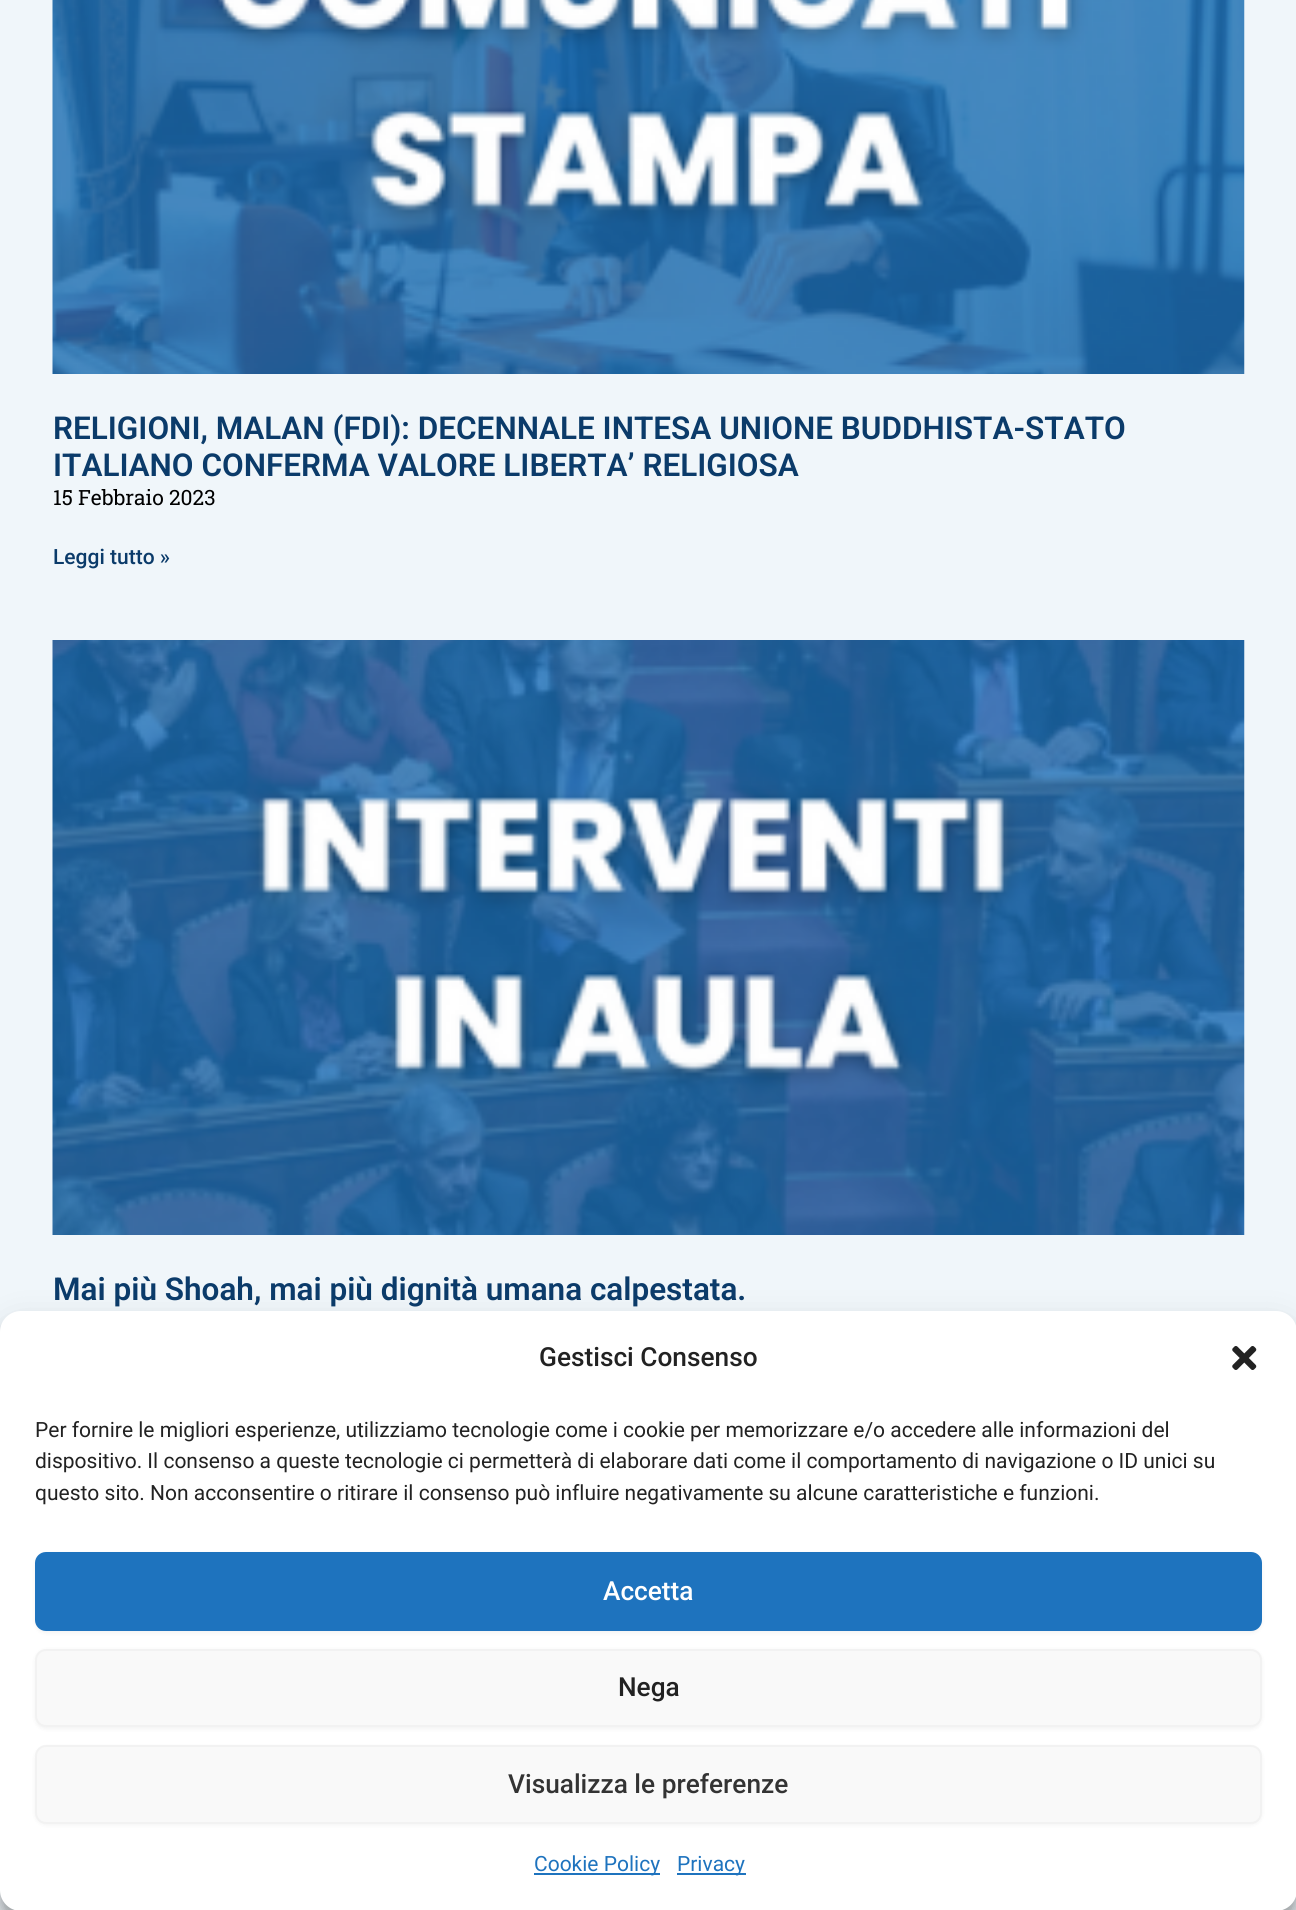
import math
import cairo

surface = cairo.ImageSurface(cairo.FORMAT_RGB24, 1296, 1910)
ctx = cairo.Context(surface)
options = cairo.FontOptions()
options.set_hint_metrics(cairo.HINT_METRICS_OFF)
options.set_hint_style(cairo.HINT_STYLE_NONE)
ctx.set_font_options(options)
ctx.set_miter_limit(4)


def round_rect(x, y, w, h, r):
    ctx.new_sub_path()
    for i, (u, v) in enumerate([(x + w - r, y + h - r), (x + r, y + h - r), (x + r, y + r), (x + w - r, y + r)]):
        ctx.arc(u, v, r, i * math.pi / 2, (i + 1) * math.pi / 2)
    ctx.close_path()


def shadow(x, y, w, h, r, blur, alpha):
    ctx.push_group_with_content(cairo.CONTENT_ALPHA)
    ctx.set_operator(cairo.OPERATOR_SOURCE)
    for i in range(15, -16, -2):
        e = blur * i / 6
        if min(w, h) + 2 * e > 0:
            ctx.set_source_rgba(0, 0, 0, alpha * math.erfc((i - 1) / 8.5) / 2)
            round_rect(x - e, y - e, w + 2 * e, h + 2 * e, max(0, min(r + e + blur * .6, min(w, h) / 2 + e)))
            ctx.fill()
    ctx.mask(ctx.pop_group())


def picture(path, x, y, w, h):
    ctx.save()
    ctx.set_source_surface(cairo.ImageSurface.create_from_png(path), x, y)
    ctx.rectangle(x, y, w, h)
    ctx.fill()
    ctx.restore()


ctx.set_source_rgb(0.941, 0.961, 0.98)
ctx.paint()
picture("img1.png", 52, 0, 1193, 374)
ctx.select_font_face("Roboto SemiBold")
ctx.set_font_size(31.5)
ctx.set_source_rgb(0.043, 0.231, 0.416)
ctx.move_to(53, 439)
ctx.show_text("RELIGIONI, MALAN (FDI): DECENNALE INTESA UNIONE BUDDHISTA-STATO")
ctx.move_to(53, 476)
ctx.show_text("ITALIANO CONFERMA VALORE LIBERTA’ RELIGIOSA")
ctx.select_font_face("Roboto Slab")
ctx.set_font_size(21)
ctx.set_source_rgb(0, 0, 0)
ctx.move_to(53, 505)
ctx.show_text("15 Febbraio 2023")
ctx.select_font_face("Roboto Medium")
ctx.set_source_rgb(0.043, 0.231, 0.416)
ctx.move_to(53, 564)
ctx.show_text("Leggi tutto »")
picture("img2.png", 52, 640, 1193, 595)
ctx.select_font_face("Roboto SemiBold")
ctx.set_font_size(31.5)
ctx.move_to(53, 1300)
ctx.show_text("Mai più Shoah, mai più dignità umana calpestata.")
ctx.set_source_rgb(0, 0, 0)
shadow(0, 1321, 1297, 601, 21, 5, 0.23)
shadow(0, 1328, 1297, 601, 21, 17.5, 0.19)
ctx.set_source_rgb(1, 1, 1)
round_rect(0, 1311, 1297, 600, 21)
ctx.fill()
ctx.select_font_face("Roboto Medium")
ctx.set_font_size(26.25)
ctx.set_source_rgb(0.133, 0.133, 0.133)
ctx.move_to(539, 1366)
ctx.show_text("Gestisci Consenso")
picture("img3.png", 1232, 1346, 25, 24)
ctx.select_font_face("Roboto")
ctx.set_font_size(21)
ctx.move_to(35, 1437)
ctx.show_text("Per fornire le migliori esperienze, utilizziamo tecnologie come i cookie per memorizzare e/o accedere alle informazioni del")
ctx.move_to(35, 1468)
ctx.show_text("dispositivo. Il consenso a queste tecnologie ci permetterà di elaborare dati come il comportamento di navigazione o ID unici su")
ctx.move_to(35, 1500)
ctx.show_text("questo sito. Non acconsentire o ritirare il consenso può influire negativamente su alcune caratteristiche e funzioni.")
ctx.set_source_rgb(0, 0, 0)
shadow(35, 1554, 1227, 79, 11, 2, 0.05)
ctx.set_source_rgb(0.118, 0.451, 0.745)
round_rect(36, 1553, 1225, 77, 10)
ctx.fill_preserve()
ctx.stroke()
ctx.select_font_face("Roboto Medium")
ctx.set_font_size(26.25)
ctx.set_source_rgb(1, 1, 1)
ctx.move_to(603, 1600)
ctx.show_text("Accetta")
ctx.set_source_rgb(0, 0, 0)
shadow(35, 1650, 1227, 79, 11, 2, 0.05)
ctx.set_source_rgb(0.976, 0.976, 0.976)
round_rect(36, 1650, 1225, 76, 10)
ctx.fill_preserve()
ctx.set_source_rgb(0.949, 0.949, 0.949)
ctx.stroke()
ctx.set_source_rgb(0.133, 0.133, 0.133)
ctx.move_to(618, 1696)
ctx.show_text("Nega")
ctx.set_source_rgb(0, 0, 0)
shadow(35, 1747, 1227, 78, 11, 2, 0.05)
ctx.set_source_rgb(0.976, 0.976, 0.976)
round_rect(36, 1746, 1225, 77, 10)
ctx.fill_preserve()
ctx.set_source_rgb(0.949, 0.949, 0.949)
ctx.stroke()
ctx.set_source_rgb(0.2, 0.2, 0.2)
ctx.move_to(508, 1793)
ctx.show_text("Visualizza le preferenze")
ctx.set_source_rgb(0.118, 0.451, 0.745)
ctx.rectangle(534, 1873, 126, 2)
ctx.fill()
ctx.select_font_face("Roboto")
ctx.set_font_size(21)
ctx.move_to(534, 1871)
ctx.show_text("Cookie Policy")
ctx.rectangle(677, 1873, 69, 2)
ctx.fill()
ctx.move_to(677, 1871)
ctx.show_text("Privacy")
surface.write_to_png("page.png")
